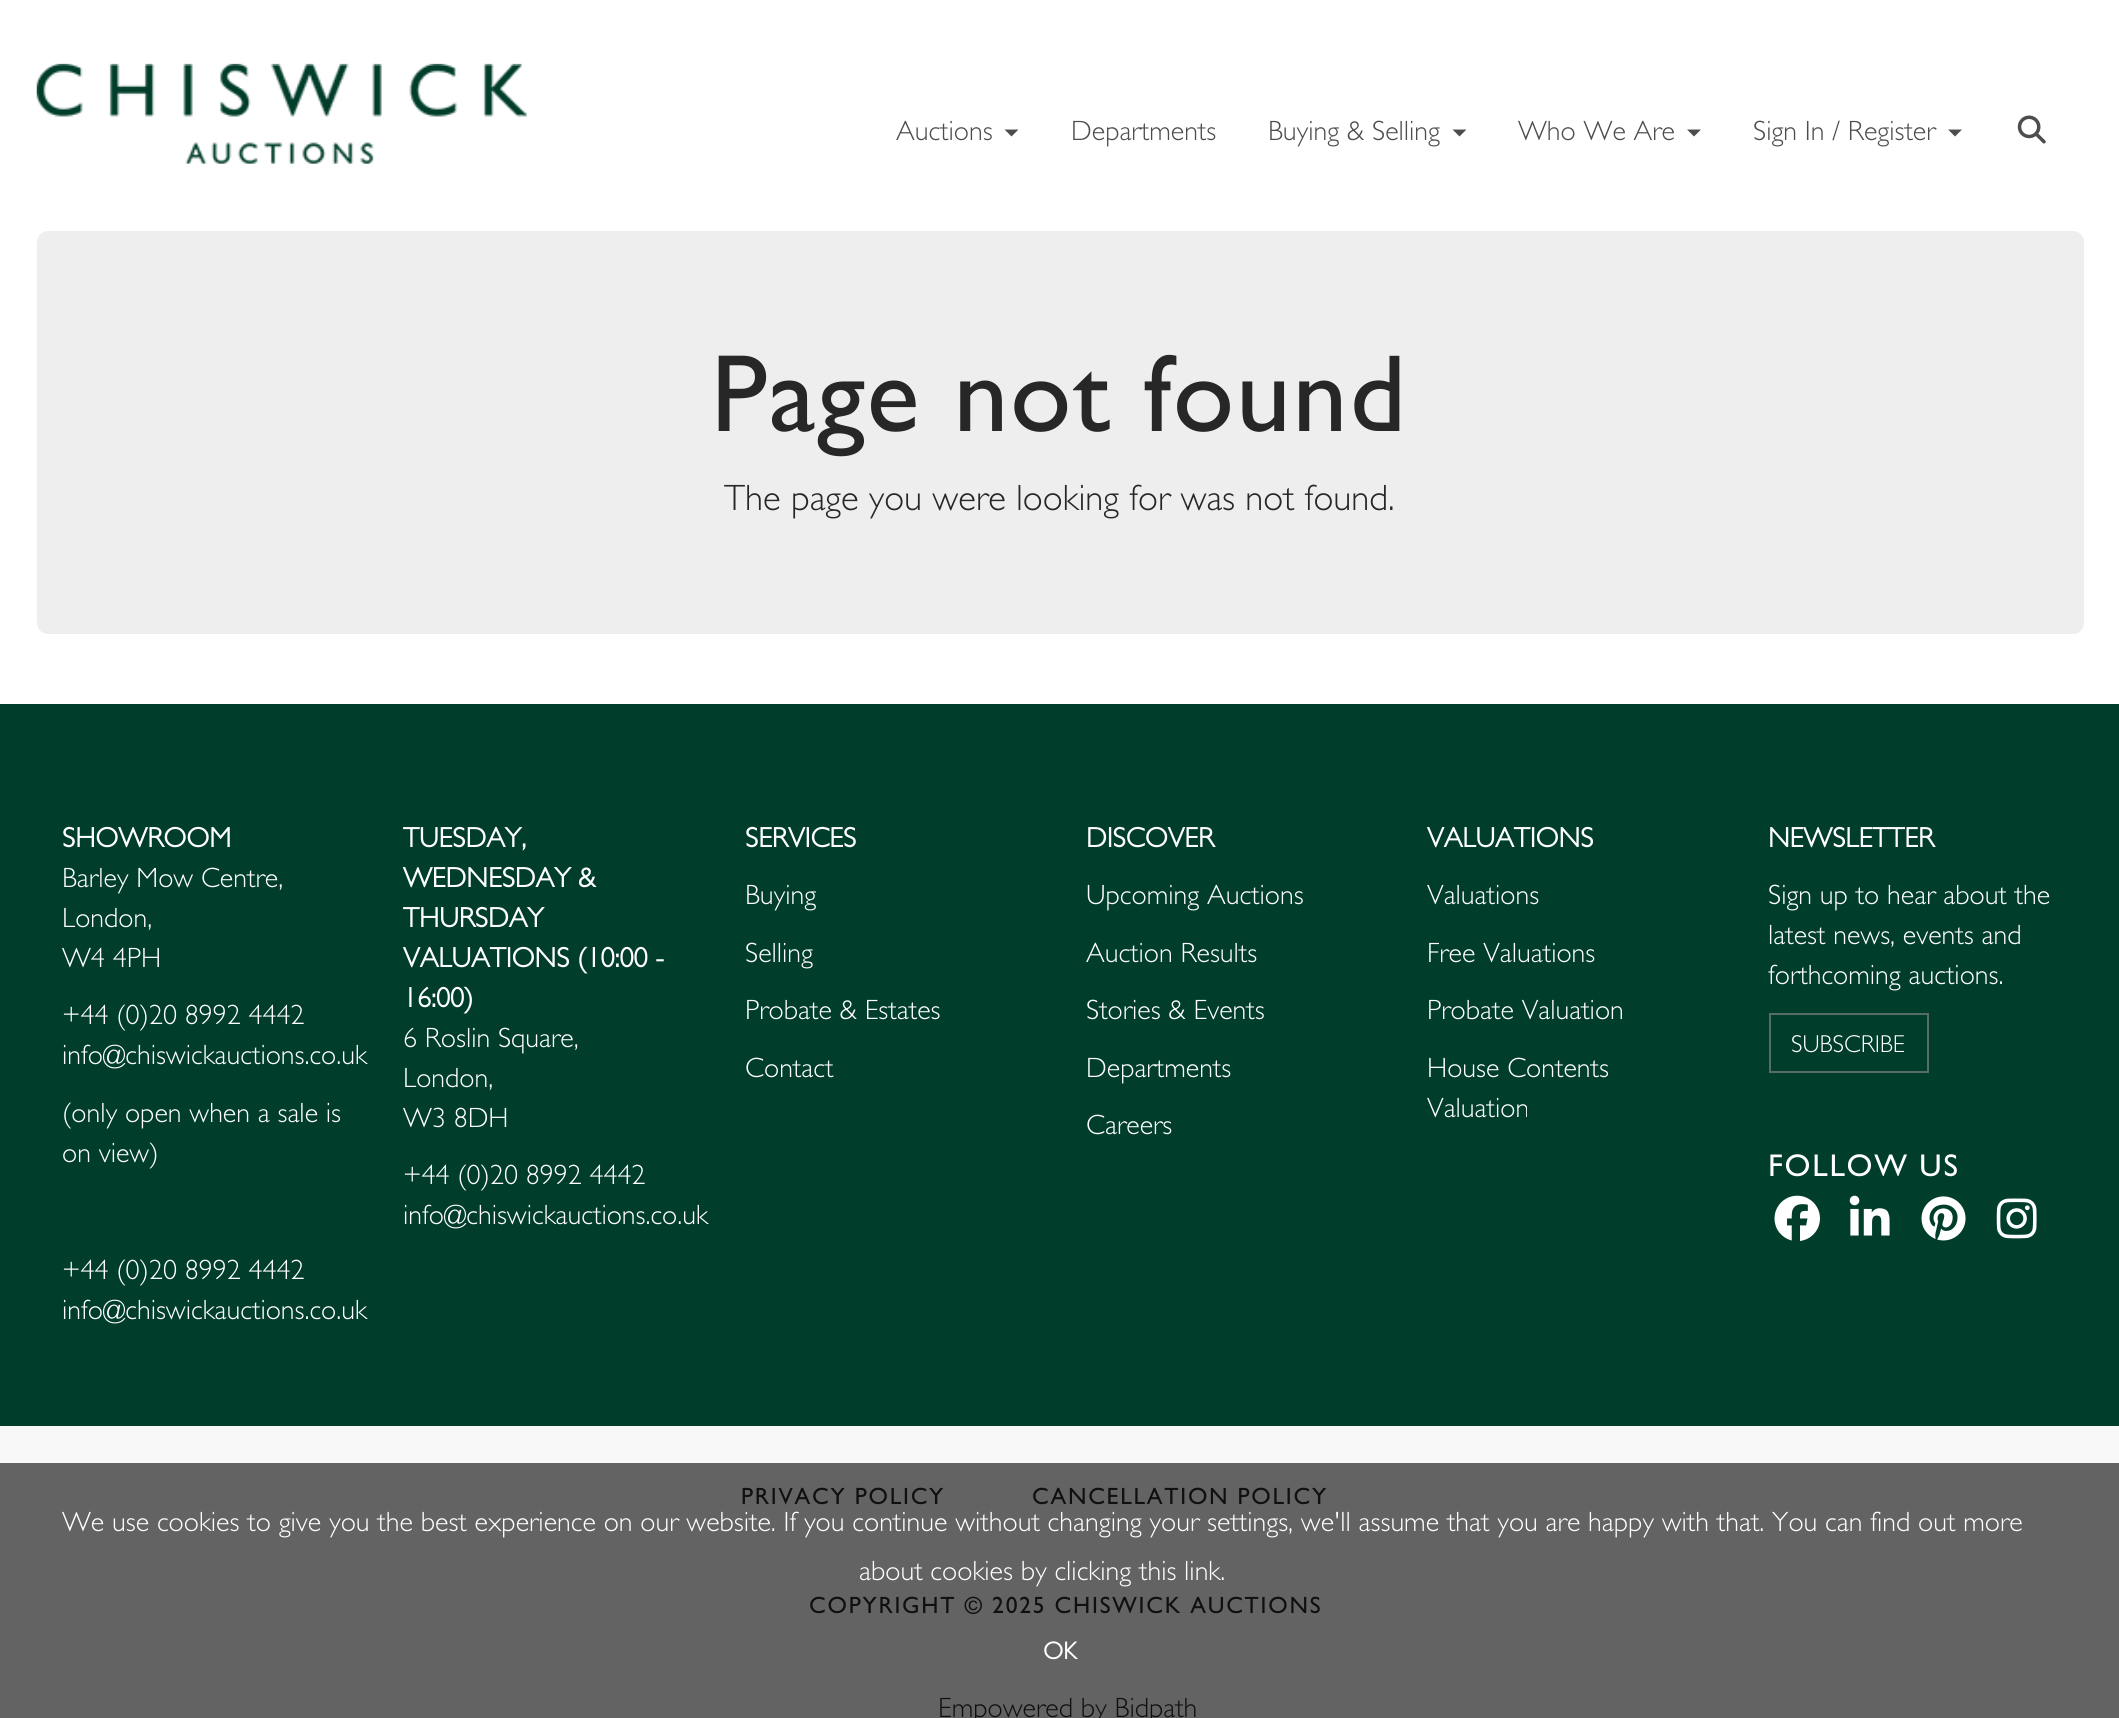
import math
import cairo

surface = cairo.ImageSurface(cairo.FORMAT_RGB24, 2119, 1718)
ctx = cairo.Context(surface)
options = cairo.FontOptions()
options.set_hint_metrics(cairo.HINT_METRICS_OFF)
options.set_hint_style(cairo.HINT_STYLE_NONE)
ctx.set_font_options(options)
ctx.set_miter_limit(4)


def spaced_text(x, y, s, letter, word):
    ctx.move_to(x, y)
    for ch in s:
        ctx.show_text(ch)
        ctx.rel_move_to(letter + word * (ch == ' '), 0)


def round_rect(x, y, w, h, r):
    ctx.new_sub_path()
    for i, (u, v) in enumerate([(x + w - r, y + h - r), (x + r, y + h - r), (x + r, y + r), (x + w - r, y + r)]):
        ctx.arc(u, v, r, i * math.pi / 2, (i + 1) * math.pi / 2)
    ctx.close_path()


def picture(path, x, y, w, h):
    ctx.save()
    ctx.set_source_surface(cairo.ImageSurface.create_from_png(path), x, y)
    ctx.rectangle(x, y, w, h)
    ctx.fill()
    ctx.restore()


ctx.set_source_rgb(1, 1, 1)
ctx.paint()
picture("img1.png", 36, 63, 491, 101)
ctx.select_font_face("Gill Sans Light")
ctx.set_font_size(28)
ctx.set_source_rgb(0.302, 0.302, 0.302)
ctx.move_to(896, 140)
ctx.show_text("Auctions")
ctx.new_path()
ctx.move_to(1004.5, 129.5)
ctx.line_to(1018.5, 129.5)
ctx.line_to(1011.5, 136.5)
ctx.close_path()
ctx.fill()
ctx.move_to(1071, 140)
ctx.show_text("Departments")
ctx.move_to(1268, 140)
ctx.show_text("Buying & Selling")
ctx.new_path()
ctx.move_to(1452.5, 129.5)
ctx.line_to(1466.5, 129.5)
ctx.line_to(1459.5, 136.5)
ctx.close_path()
ctx.fill()
ctx.move_to(1518, 140)
ctx.show_text("Who We Are")
ctx.new_path()
ctx.move_to(1687, 129.5)
ctx.line_to(1701, 129.5)
ctx.line_to(1694, 136.5)
ctx.close_path()
ctx.fill()
ctx.move_to(1753, 140)
ctx.show_text("Sign In / Register")
ctx.new_path()
ctx.move_to(1948, 129.5)
ctx.line_to(1962, 129.5)
ctx.line_to(1955, 136.5)
ctx.close_path()
ctx.fill()
picture("img2.png", 2017, 115, 29, 29)
ctx.set_source_rgb(0.933, 0.933, 0.933)
round_rect(37, 231, 2047, 403, 11)
ctx.fill()
ctx.select_font_face("Gill Sans")
ctx.set_font_size(110.25)
ctx.set_source_rgb(0.157, 0.153, 0.153)
spaced_text(711, 431, "Page not found", 1.75, 0)
ctx.select_font_face("Gill Sans Light")
ctx.set_font_size(36.75)
ctx.move_to(724, 510)
ctx.show_text("The page you were looking for was not found.")
ctx.set_source_rgb(0, 0.239, 0.169)
ctx.rectangle(0, 704, 2119, 722)
ctx.fill()
ctx.select_font_face("Gill Sans", cairo.FONT_SLANT_NORMAL, cairo.FONT_WEIGHT_BOLD)
ctx.set_font_size(28)
ctx.set_source_rgb(1, 1, 1)
ctx.move_to(62, 847)
ctx.show_text("SHOWROOM")
ctx.select_font_face("Gill Sans Light")
ctx.move_to(62, 887)
ctx.show_text("Barley Mow Centre,")
ctx.move_to(62, 927)
ctx.show_text("London,")
ctx.move_to(62, 967)
ctx.show_text("W4 4PH")
ctx.move_to(62, 1024)
ctx.show_text("+44 (0)20 8992 4442")
ctx.move_to(62, 1064)
ctx.show_text("info@chiswickauctions.co.uk")
ctx.move_to(62, 1122)
ctx.show_text("(only open when a sale is")
ctx.move_to(62, 1162)
ctx.show_text("on view)")
ctx.move_to(62, 1279)
ctx.show_text("+44 (0)20 8992 4442")
ctx.move_to(62, 1319)
ctx.show_text("info@chiswickauctions.co.uk")
ctx.select_font_face("Gill Sans", cairo.FONT_SLANT_NORMAL, cairo.FONT_WEIGHT_BOLD)
ctx.move_to(403, 847)
ctx.show_text("TUESDAY,")
ctx.move_to(403, 887)
ctx.show_text("WEDNESDAY &")
ctx.move_to(403, 927)
ctx.show_text("THURSDAY")
ctx.move_to(403, 967)
ctx.show_text("VALUATIONS (10:00 -")
ctx.move_to(403, 1007)
ctx.show_text("16:00)")
ctx.select_font_face("Gill Sans Light")
ctx.move_to(403, 1047)
ctx.show_text("6 Roslin Square,")
ctx.move_to(403, 1087)
ctx.show_text("London,")
ctx.move_to(403, 1127)
ctx.show_text("W3 8DH")
ctx.move_to(403, 1184)
ctx.show_text("+44 (0)20 8992 4442")
ctx.move_to(403, 1224)
ctx.show_text("info@chiswickauctions.co.uk")
ctx.select_font_face("Gill Sans", cairo.FONT_SLANT_NORMAL, cairo.FONT_WEIGHT_BOLD)
ctx.move_to(745, 847)
ctx.show_text("SERVICES")
ctx.select_font_face("Gill Sans Light")
ctx.move_to(745, 904)
ctx.show_text("Buying")
ctx.move_to(745, 962)
ctx.show_text("Selling")
ctx.move_to(745, 1019)
ctx.show_text("Probate & Estates")
ctx.move_to(745, 1077)
ctx.show_text("Contact")
ctx.select_font_face("Gill Sans", cairo.FONT_SLANT_NORMAL, cairo.FONT_WEIGHT_BOLD)
ctx.move_to(1086, 847)
ctx.show_text("DISCOVER")
ctx.select_font_face("Gill Sans Light")
ctx.move_to(1086, 904)
ctx.show_text("Upcoming Auctions")
ctx.move_to(1086, 962)
ctx.show_text("Auction Results")
ctx.move_to(1086, 1019)
ctx.show_text("Stories & Events")
ctx.move_to(1086, 1077)
ctx.show_text("Departments")
ctx.move_to(1086, 1134)
ctx.show_text("Careers")
ctx.select_font_face("Gill Sans", cairo.FONT_SLANT_NORMAL, cairo.FONT_WEIGHT_BOLD)
ctx.move_to(1427, 847)
ctx.show_text("VALUATIONS")
ctx.select_font_face("Gill Sans Light")
ctx.move_to(1427, 904)
ctx.show_text("Valuations")
ctx.move_to(1427, 962)
ctx.show_text("Free Valuations")
ctx.move_to(1427, 1019)
ctx.show_text("Probate Valuation")
ctx.move_to(1427, 1077)
ctx.show_text("House Contents")
ctx.move_to(1427, 1117)
ctx.show_text("Valuation")
ctx.select_font_face("Gill Sans", cairo.FONT_SLANT_NORMAL, cairo.FONT_WEIGHT_BOLD)
ctx.move_to(1768, 847)
ctx.show_text("NEWSLETTER")
ctx.select_font_face("Gill Sans Light")
ctx.move_to(1768, 904)
ctx.show_text("Sign up to hear about the")
ctx.move_to(1768, 944)
ctx.show_text("latest news, events and")
ctx.move_to(1768, 984)
ctx.show_text("forthcoming auctions.")
ctx.rectangle(1770, 1014, 158, 58)
ctx.set_source_rgb(0.333, 0.427, 0.396)
ctx.stroke()
ctx.set_font_size(24.5)
ctx.set_source_rgb(1, 1, 1)
ctx.move_to(1791, 1052)
ctx.show_text("SUBSCRIBE")
ctx.select_font_face("Gill Sans")
ctx.set_font_size(31.5)
spaced_text(1768, 1176, "FOLLOW US", 1.75, 0)
picture("img3.png", 1774, 1195, 46, 46)
picture("img4.png", 1849, 1195, 41, 41)
picture("img5.png", 1921, 1196, 45, 45)
picture("img6.png", 1996, 1198, 41, 41)
ctx.set_source_rgb(0.969, 0.969, 0.969)
ctx.rectangle(0, 1426, 2119, 37)
ctx.fill()
ctx.set_source_rgb(0.388, 0.388, 0.388)
ctx.rectangle(0, 1463, 2119, 255)
ctx.fill()
ctx.set_font_size(23.6)
ctx.set_source_rgb(0.063, 0.063, 0.063)
spaced_text(741, 1504, "PRIVACY POLICY", 1.75, 0)
spaced_text(1032, 1504, "CANCELLATION POLICY", 1.75, 0)
spaced_text(809, 1613, "COPYRIGHT © 2025 CHISWICK AUCTIONS", 1.75, 0)
ctx.select_font_face("Gill Sans Light")
ctx.set_font_size(28)
ctx.move_to(938, 1717)
ctx.show_text("Empowered by Bidpath")
ctx.set_source_rgb(1, 1, 1)
ctx.move_to(62, 1531)
ctx.show_text("We use cookies to give you the best experience on our website. If you continue without changing your settings, we'll assume that you are happy with that. You can find out more")
ctx.move_to(859, 1580)
ctx.show_text("about cookies by clicking this link.")
ctx.select_font_face("Gill Sans", cairo.FONT_SLANT_NORMAL, cairo.FONT_WEIGHT_BOLD)
ctx.set_font_size(24.5)
ctx.move_to(1043, 1659)
ctx.show_text("OK")
surface.write_to_png("page.png")
